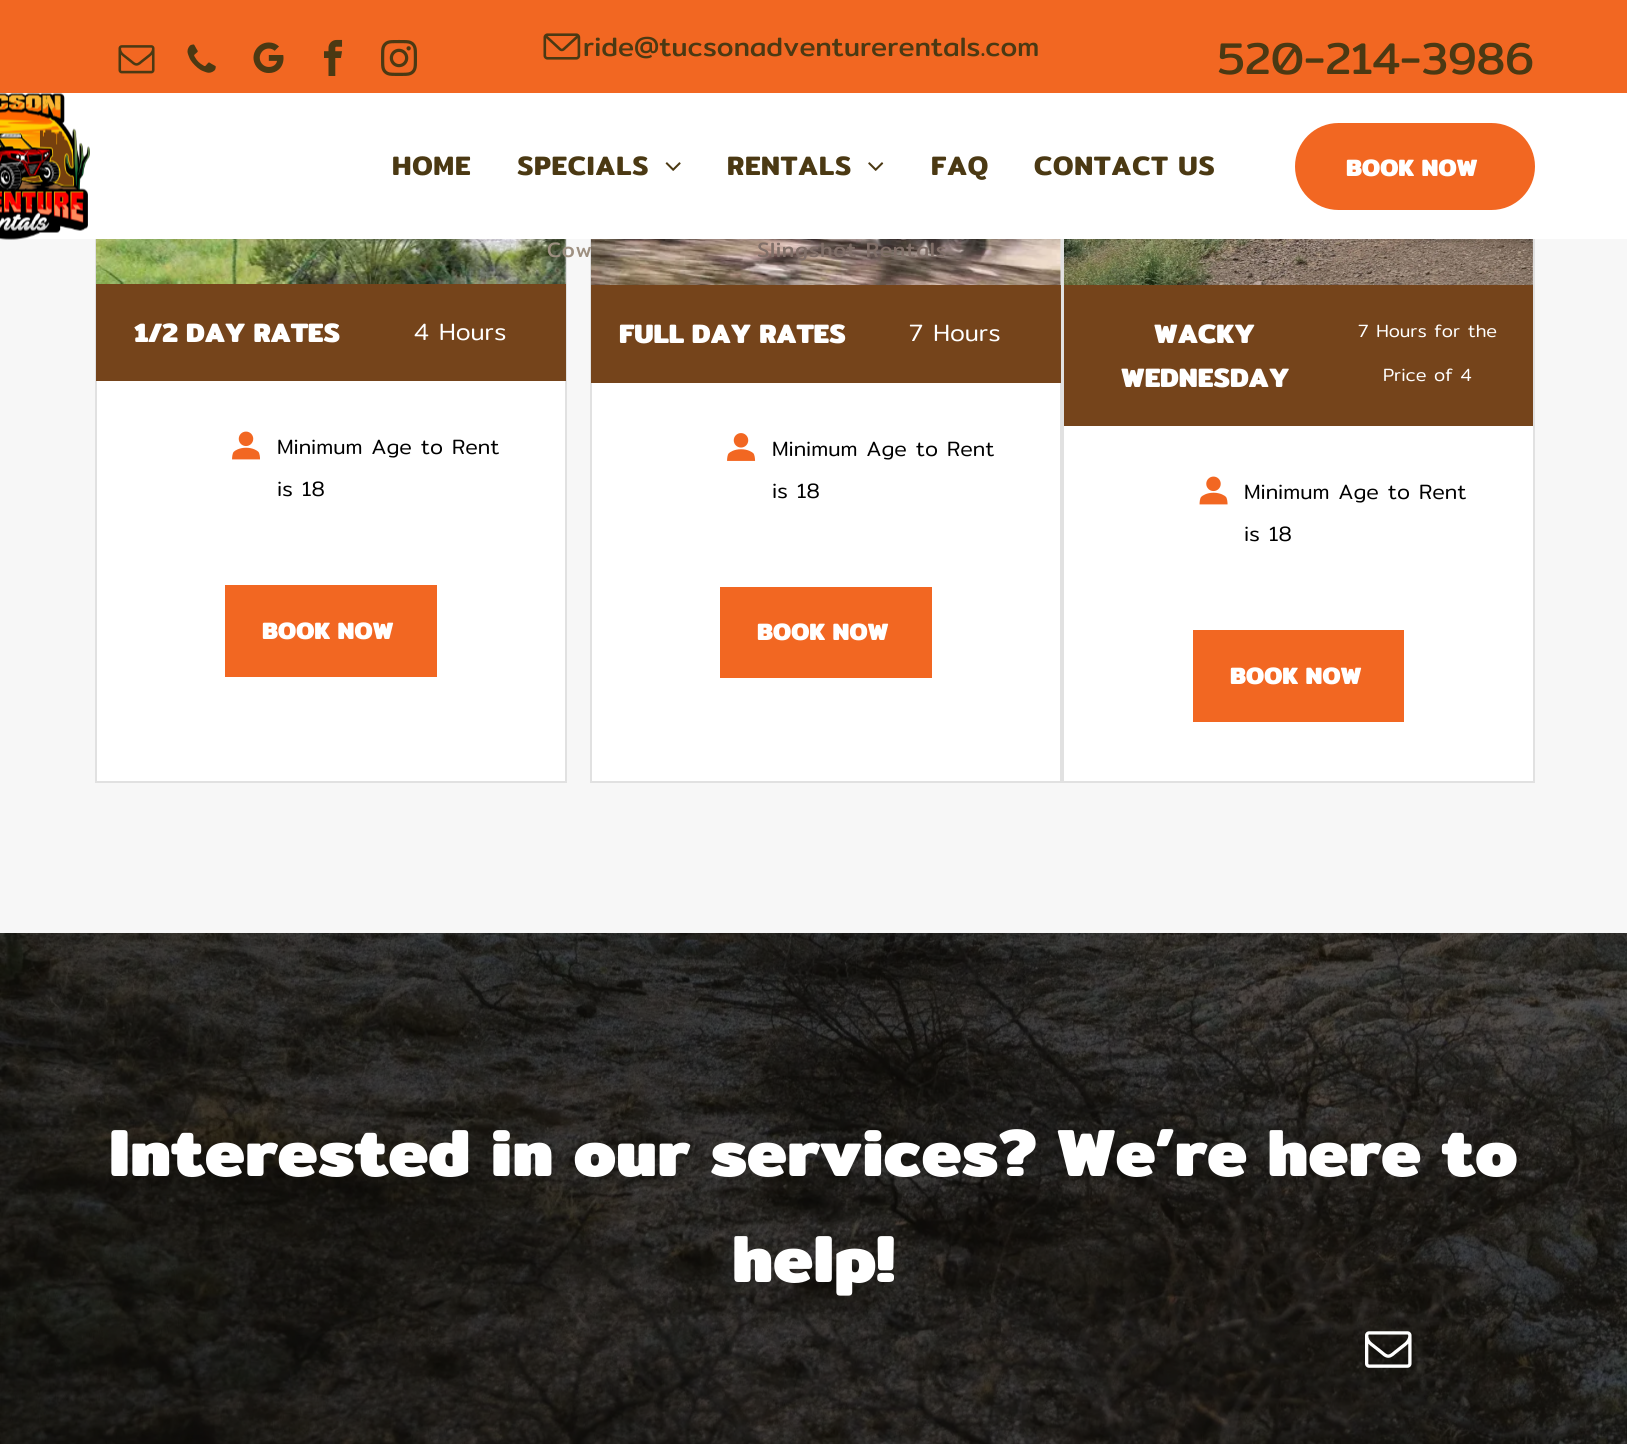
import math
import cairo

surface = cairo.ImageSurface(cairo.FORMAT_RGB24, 1627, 1444)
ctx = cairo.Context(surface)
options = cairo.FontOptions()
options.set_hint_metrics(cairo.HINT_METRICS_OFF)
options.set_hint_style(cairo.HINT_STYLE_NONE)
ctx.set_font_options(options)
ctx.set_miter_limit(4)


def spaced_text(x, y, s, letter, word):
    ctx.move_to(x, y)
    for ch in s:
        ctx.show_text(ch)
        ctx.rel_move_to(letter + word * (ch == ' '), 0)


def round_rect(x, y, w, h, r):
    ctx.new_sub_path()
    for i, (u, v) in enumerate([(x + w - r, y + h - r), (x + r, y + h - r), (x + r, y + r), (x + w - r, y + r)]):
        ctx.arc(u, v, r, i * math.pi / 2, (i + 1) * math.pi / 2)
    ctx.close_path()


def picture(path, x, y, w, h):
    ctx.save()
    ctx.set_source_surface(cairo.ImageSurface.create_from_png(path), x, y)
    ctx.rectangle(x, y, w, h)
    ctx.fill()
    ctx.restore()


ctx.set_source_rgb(0.965, 0.965, 0.965)
ctx.paint()
ctx.set_source_rgb(1, 1, 1)
ctx.rectangle(97, 239, 468, 542)
ctx.fill()
ctx.rectangle(96, -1, 470, 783)
ctx.set_source_rgb(0.882, 0.882, 0.882)
ctx.stroke()
ctx.set_source_rgb(1, 1, 1)
ctx.rectangle(592, 383, 468, 398)
ctx.fill()
ctx.rectangle(591, -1, 470, 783)
ctx.set_source_rgb(0.882, 0.882, 0.882)
ctx.stroke()
ctx.set_source_rgb(1, 1, 1)
ctx.rectangle(1064, 239, 469, 542)
ctx.fill()
ctx.rectangle(1063, -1, 471, 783)
ctx.set_source_rgb(0.882, 0.882, 0.882)
ctx.stroke()
ctx.set_source_rgb(0.949, 0.404, 0.133)
ctx.rectangle(0, 0, 1627, 93)
ctx.fill()
picture("img1.png", 118, 45, 37, 29)
picture("img2.png", 187, 44, 29, 29)
picture("img3.png", 253, 42, 31, 31)
picture("img4.png", 324, 39, 19, 37)
picture("img5.png", 381, 39, 36, 37)
picture("img6.png", 543, 33, 38, 27)
ctx.select_font_face("Mitr")
ctx.set_font_size(27)
ctx.set_source_rgb(0.294, 0.224, 0.075)
ctx.move_to(583, 56)
ctx.show_text("ride@tucsonadventurerentals.com")
ctx.set_font_size(45)
ctx.move_to(1217, 74)
ctx.show_text("520-214-3986")
ctx.set_source_rgb(1, 1, 1)
ctx.rectangle(0, 93, 1627, 146)
ctx.fill()
picture("img7.png", 0, 93, 90, 147)
ctx.select_font_face("Mitr SemiBold")
ctx.set_font_size(27)
ctx.set_source_rgb(0.294, 0.224, 0.075)
spaced_text(392, 175, "HOME", 0.75, 0)
spaced_text(517, 175, "SPECIALS", 0.75, 0)
picture("img8.png", 665, 162, 16, 9)
picture("img10.png", 96, 239, 470, 45)
ctx.select_font_face("Mitr")
ctx.set_font_size(21)
ctx.set_source_rgb(0.62, 0.565, 0.506)
spaced_text(547, 257, "Cow", 0.6, 0)
ctx.select_font_face("Mitr SemiBold")
ctx.set_font_size(27)
ctx.set_source_rgb(0.294, 0.224, 0.075)
spaced_text(727, 175, "RENTALS", 0.75, 0)
picture("img9.png", 868, 162, 16, 9)
picture("img12.png", 591, 239, 470, 46)
ctx.select_font_face("Mitr")
ctx.set_font_size(21)
ctx.set_source_rgb(0.502, 0.435, 0.408)
spaced_text(757, 257, "Slingshot Rentals", 0.6, 0)
ctx.select_font_face("Mitr SemiBold")
ctx.set_font_size(27)
ctx.set_source_rgb(0.294, 0.224, 0.075)
spaced_text(931, 175, "FAQ", 0.75, 0)
spaced_text(1034, 175, "CONTACT US", 0.75, 0)
ctx.set_source_rgb(0.949, 0.404, 0.133)
round_rect(1295, 123, 240, 87, 43.5)
ctx.fill()
ctx.select_font_face("Mitr", cairo.FONT_SLANT_NORMAL, cairo.FONT_WEIGHT_BOLD)
ctx.set_font_size(24)
ctx.set_source_rgb(1, 1, 1)
ctx.move_to(1346, 176)
ctx.show_text("BOOK NOW")
ctx.set_source_rgb(0.459, 0.267, 0.106)
ctx.rectangle(96, 284, 470, 97)
ctx.fill()
ctx.set_font_size(27)
ctx.set_source_rgb(1, 1, 1)
ctx.move_to(134, 342)
ctx.show_text("1/2 DAY RATES")
ctx.select_font_face("Mitr Light")
ctx.set_font_size(24)
ctx.move_to(414, 340)
ctx.show_text("4 Hours")
picture("img11.png", 232, 431, 28, 29)
ctx.set_font_size(21)
ctx.set_source_rgb(0, 0, 0)
ctx.move_to(277, 454)
ctx.show_text("Minimum Age to Rent")
ctx.move_to(277, 496)
ctx.show_text("is 18")
ctx.set_source_rgb(0.949, 0.404, 0.133)
ctx.rectangle(225, 585, 212, 92)
ctx.fill()
ctx.select_font_face("Mitr", cairo.FONT_SLANT_NORMAL, cairo.FONT_WEIGHT_BOLD)
ctx.set_font_size(24)
ctx.set_source_rgb(1, 1, 1)
ctx.move_to(262, 639)
ctx.show_text("BOOK NOW")
ctx.set_source_rgb(0.459, 0.267, 0.106)
ctx.rectangle(591, 285, 470, 98)
ctx.fill()
ctx.set_font_size(27)
ctx.set_source_rgb(1, 1, 1)
ctx.move_to(619, 343)
ctx.show_text("FULL DAY RATES")
ctx.select_font_face("Mitr Light")
ctx.set_font_size(24)
ctx.move_to(909, 341)
ctx.show_text("7 Hours")
picture("img13.png", 727, 433, 29, 28)
ctx.set_font_size(21)
ctx.set_source_rgb(0, 0, 0)
ctx.move_to(772, 456)
ctx.show_text("Minimum Age to Rent")
ctx.move_to(772, 498)
ctx.show_text("is 18")
ctx.set_source_rgb(0.949, 0.404, 0.133)
ctx.rectangle(720, 587, 212, 91)
ctx.fill()
ctx.select_font_face("Mitr", cairo.FONT_SLANT_NORMAL, cairo.FONT_WEIGHT_BOLD)
ctx.set_font_size(24)
ctx.set_source_rgb(1, 1, 1)
ctx.move_to(757, 640)
ctx.show_text("BOOK NOW")
picture("img14.png", 1064, 239, 469, 46)
ctx.set_source_rgb(0.459, 0.267, 0.106)
ctx.rectangle(1064, 285, 469, 141)
ctx.fill()
ctx.set_font_size(27)
ctx.set_source_rgb(1, 1, 1)
ctx.move_to(1154, 343)
ctx.show_text("WACKY")
ctx.move_to(1121, 387)
ctx.show_text("WEDNESDAY")
ctx.select_font_face("Mitr Light")
ctx.set_font_size(18)
ctx.move_to(1358, 337)
ctx.show_text("7 Hours for the")
ctx.move_to(1383, 381)
ctx.show_text("Price of 4")
picture("img15.png", 1199, 476, 29, 29)
ctx.set_font_size(21)
ctx.set_source_rgb(0, 0, 0)
ctx.move_to(1244, 499)
ctx.show_text("Minimum Age to Rent")
ctx.move_to(1244, 541)
ctx.show_text("is 18")
ctx.set_source_rgb(0.949, 0.404, 0.133)
ctx.rectangle(1193, 630, 211, 92)
ctx.fill()
ctx.select_font_face("Mitr", cairo.FONT_SLANT_NORMAL, cairo.FONT_WEIGHT_BOLD)
ctx.set_font_size(24)
ctx.set_source_rgb(1, 1, 1)
ctx.move_to(1230, 684)
ctx.show_text("BOOK NOW")
picture("img16.png", 0, 933, 1627, 511)
ctx.set_font_size(67.5)
ctx.move_to(109, 1176)
ctx.show_text("Interested in our services? We’re here to")
ctx.move_to(732, 1282)
ctx.show_text("help!")
picture("img17.png", 1365, 1331, 47, 37)
surface.write_to_png("page.png")
